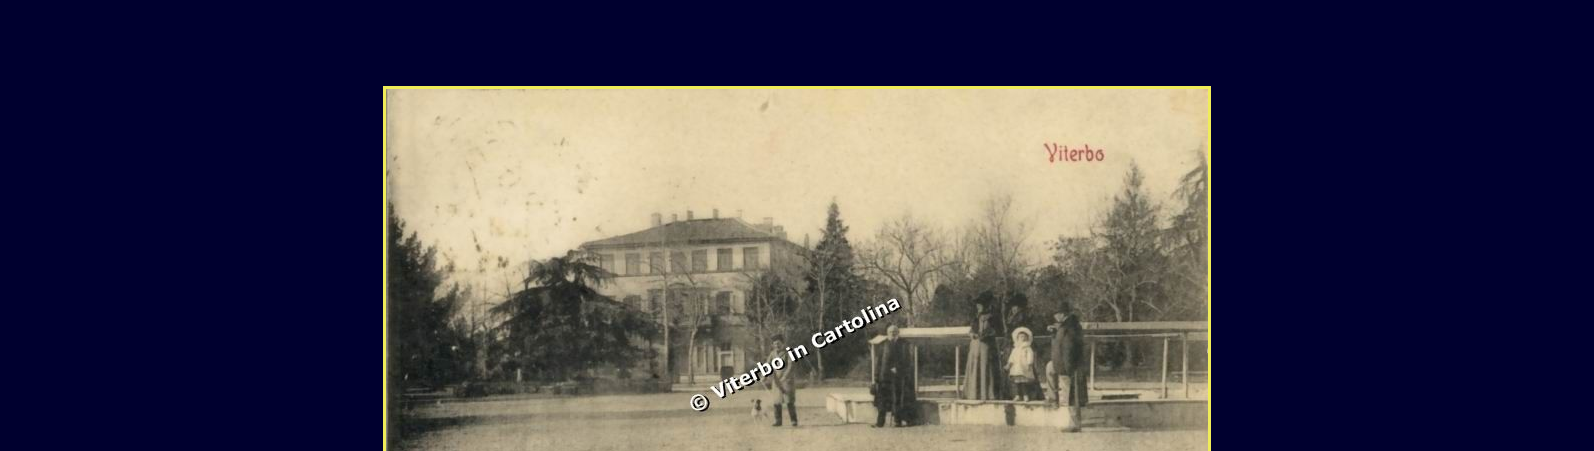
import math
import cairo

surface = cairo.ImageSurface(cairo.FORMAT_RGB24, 1594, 451)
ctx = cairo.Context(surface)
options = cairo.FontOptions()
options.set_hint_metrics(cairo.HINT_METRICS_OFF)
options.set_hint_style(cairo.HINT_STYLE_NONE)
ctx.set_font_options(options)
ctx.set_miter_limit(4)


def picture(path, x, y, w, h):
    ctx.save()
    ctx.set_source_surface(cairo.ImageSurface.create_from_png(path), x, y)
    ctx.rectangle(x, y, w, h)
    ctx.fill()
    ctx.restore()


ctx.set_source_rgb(0, 0, 0.184)
ctx.paint()
ctx.rectangle(384.5, 87.5, 825, 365)
ctx.set_source_rgb(0.937, 0.922, 0.345)
ctx.set_line_width(3)
ctx.stroke()
picture("img1.png", 386, 89, 822, 362)
surface.write_to_png("page.png")
